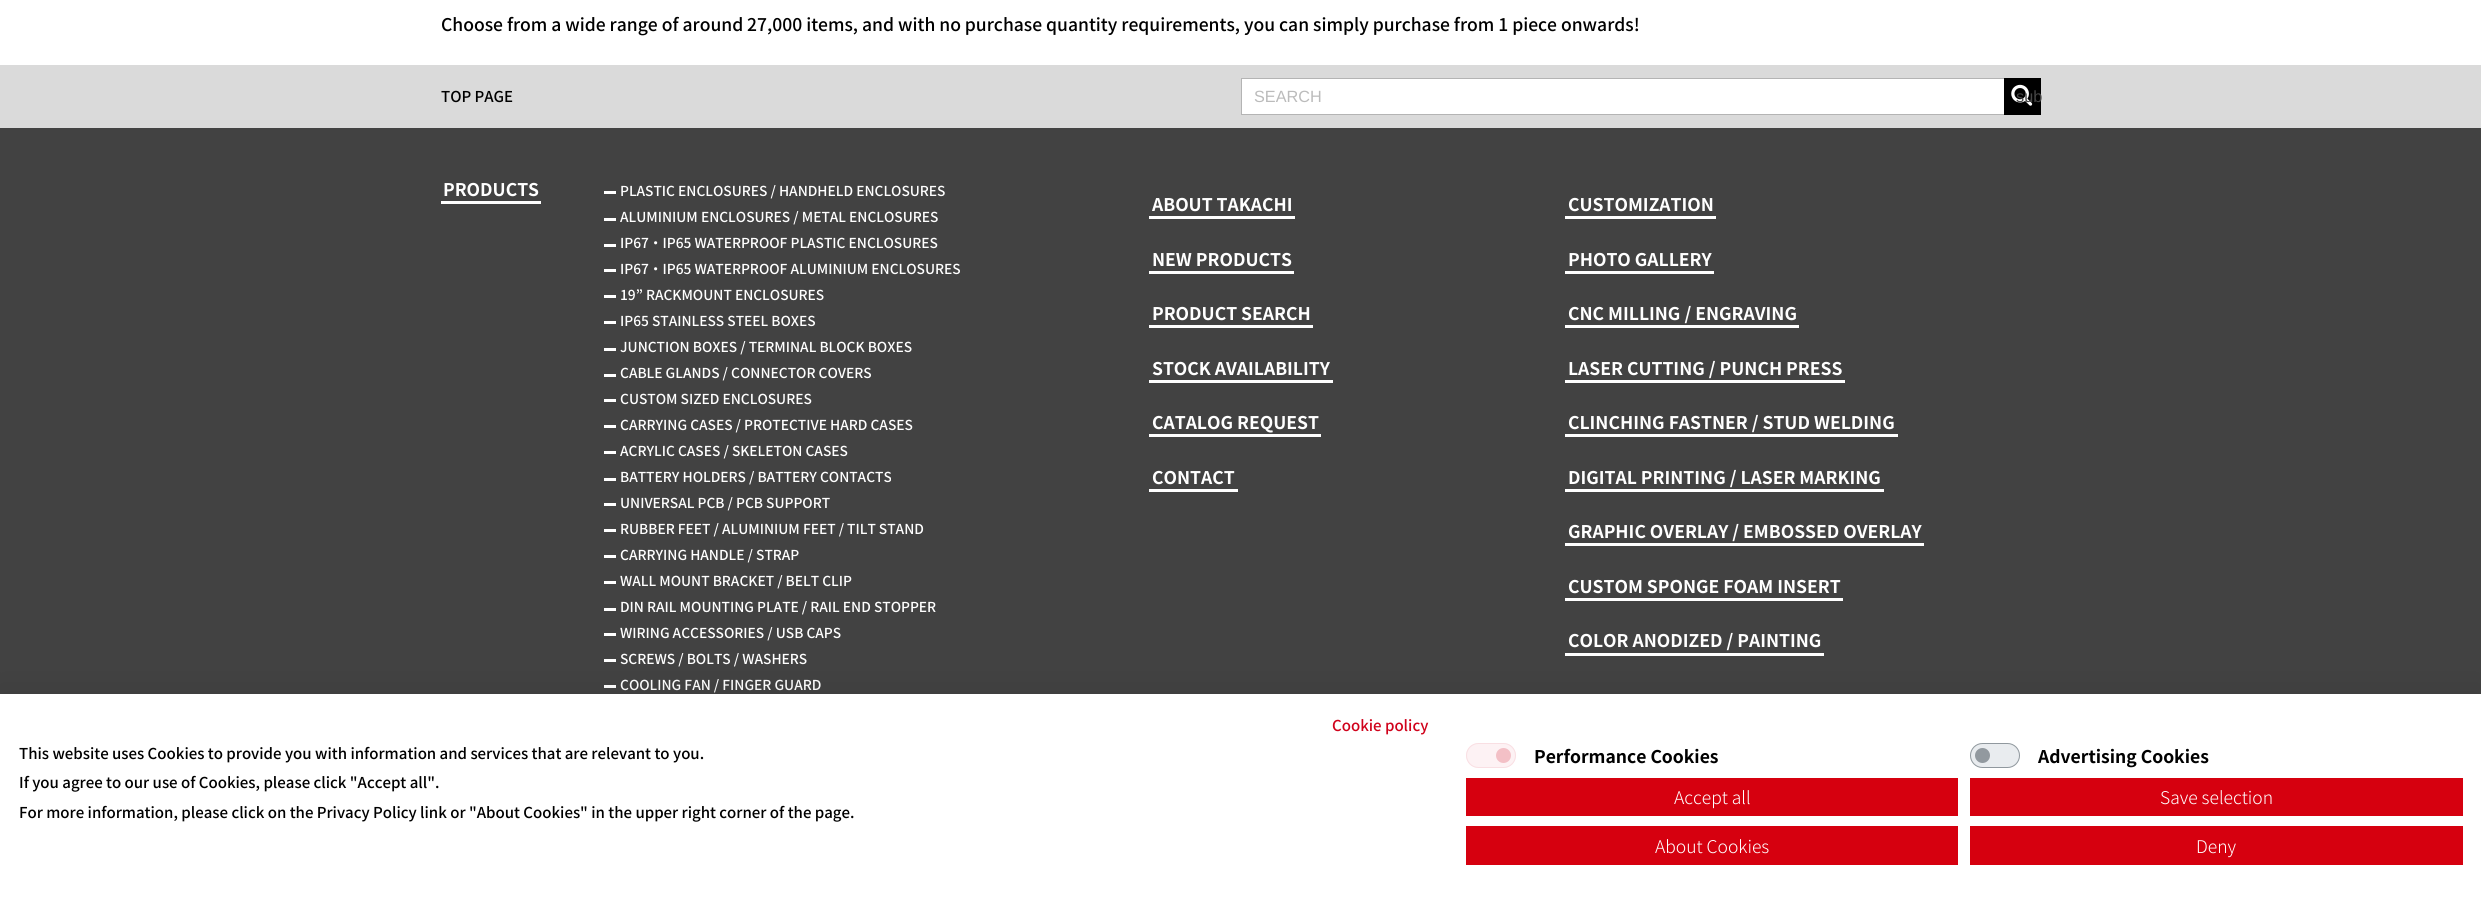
import math
import cairo

surface = cairo.ImageSurface(cairo.FORMAT_RGB24, 2481, 898)
ctx = cairo.Context(surface)
options = cairo.FontOptions()
options.set_hint_metrics(cairo.HINT_METRICS_OFF)
options.set_hint_style(cairo.HINT_STYLE_NONE)
ctx.set_font_options(options)
ctx.set_miter_limit(4)


def round_rect(x, y, w, h, r):
    ctx.new_sub_path()
    for i, (u, v) in enumerate([(x + w - r, y + h - r), (x + r, y + h - r), (x + r, y + r), (x + w - r, y + r)]):
        ctx.arc(u, v, r, i * math.pi / 2, (i + 1) * math.pi / 2)
    ctx.close_path()


def shadow(x, y, w, h, r, blur, alpha):
    ctx.push_group_with_content(cairo.CONTENT_ALPHA)
    ctx.set_operator(cairo.OPERATOR_SOURCE)
    for i in range(15, -16, -2):
        e = blur * i / 6
        if min(w, h) + 2 * e > 0:
            ctx.set_source_rgba(0, 0, 0, alpha * math.erfc((i - 1) / 8.5) / 2)
            round_rect(x - e, y - e, w + 2 * e, h + 2 * e, max(0, min(r + e + blur * .6, min(w, h) / 2 + e)))
            ctx.fill()
    ctx.mask(ctx.pop_group())


def picture(path, x, y, w, h):
    ctx.save()
    ctx.set_source_surface(cairo.ImageSurface.create_from_png(path), x, y)
    ctx.rectangle(x, y, w, h)
    ctx.fill()
    ctx.restore()


ctx.set_source_rgb(1, 1, 1)
ctx.paint()
ctx.select_font_face("Noto Sans JP Medium")
ctx.set_font_size(17.5)
ctx.set_source_rgb(0, 0, 0)
ctx.move_to(441, 31)
ctx.show_text("Choose from a wide range of around 27,000 items, and with no purchase quantity requirements, you can simply purchase from 1 piece onwards!")
ctx.set_source_rgb(0.855, 0.855, 0.855)
ctx.rectangle(0, 65, 2481, 63)
ctx.fill()
ctx.set_font_size(15)
ctx.set_source_rgb(0, 0, 0)
ctx.move_to(441, 102)
ctx.show_text("TOP PAGE")
ctx.set_source_rgb(1, 1, 1)
ctx.rectangle(1242, 79, 762, 35)
ctx.fill()
ctx.rectangle(1241.5, 78.5, 799, 36)
ctx.set_source_rgb(0.706, 0.706, 0.706)
ctx.set_line_width(1)
ctx.stroke()
ctx.select_font_face("Liberation Sans")
ctx.set_font_size(16.25)
ctx.set_source_rgb(0.733, 0.733, 0.733)
ctx.move_to(1254, 102)
ctx.show_text("SEARCH")
ctx.set_source_rgb(0, 0, 0)
ctx.rectangle(2004, 78, 37, 37)
ctx.fill()
picture("img1.png", 2011, 84, 22, 22)
ctx.set_source_rgb(0.271, 0.271, 0.271)
ctx.move_to(2016, 102)
ctx.show_text("sub")
ctx.set_source_rgb(0.259, 0.259, 0.259)
ctx.rectangle(0, 128, 2481, 566)
ctx.fill()
ctx.select_font_face("Noto Sans JP", cairo.FONT_SLANT_NORMAL, cairo.FONT_WEIGHT_BOLD)
ctx.set_font_size(17.5)
ctx.set_source_rgb(1, 1, 1)
ctx.move_to(443, 196)
ctx.show_text("PRODUCTS")
ctx.rectangle(441, 201, 100, 3)
ctx.fill()
ctx.rectangle(604, 191, 12, 3)
ctx.fill()
ctx.select_font_face("Noto Sans JP Medium")
ctx.set_font_size(13.75)
ctx.move_to(620, 196)
ctx.show_text("PLASTIC ENCLOSURES / HANDHELD ENCLOSURES")
ctx.rectangle(604, 218, 12, 3)
ctx.fill()
ctx.move_to(620, 222)
ctx.show_text("ALUMINIUM ENCLOSURES / METAL ENCLOSURES")
ctx.rectangle(604, 244, 12, 3)
ctx.fill()
ctx.move_to(620, 248)
ctx.show_text("IP67・IP65 WATERPROOF PLASTIC ENCLOSURES")
ctx.rectangle(604, 269, 12, 3)
ctx.fill()
ctx.move_to(620, 274)
ctx.show_text("IP67・IP65 WATERPROOF ALUMINIUM ENCLOSURES")
ctx.rectangle(604, 295, 12, 3)
ctx.fill()
ctx.move_to(620, 300)
ctx.show_text("19” RACKMOUNT ENCLOSURES")
ctx.rectangle(604, 321, 12, 3)
ctx.fill()
ctx.move_to(620, 326)
ctx.show_text("IP65 STAINLESS STEEL BOXES")
ctx.rectangle(604, 348, 12, 3)
ctx.fill()
ctx.move_to(620, 352)
ctx.show_text("JUNCTION BOXES / TERMINAL BLOCK BOXES")
ctx.rectangle(604, 374, 12, 3)
ctx.fill()
ctx.move_to(620, 378)
ctx.show_text("CABLE GLANDS / CONNECTOR COVERS")
ctx.rectangle(604, 399, 12, 3)
ctx.fill()
ctx.move_to(620, 404)
ctx.show_text("CUSTOM SIZED ENCLOSURES")
ctx.rectangle(604, 425, 12, 3)
ctx.fill()
ctx.move_to(620, 430)
ctx.show_text("CARRYING CASES / PROTECTIVE HARD CASES")
ctx.rectangle(604, 451, 12, 3)
ctx.fill()
ctx.move_to(620, 456)
ctx.show_text("ACRYLIC CASES / SKELETON CASES")
ctx.rectangle(604, 478, 12, 3)
ctx.fill()
ctx.move_to(620, 482)
ctx.show_text("BATTERY HOLDERS / BATTERY CONTACTS")
ctx.rectangle(604, 503, 12, 3)
ctx.fill()
ctx.move_to(620, 508)
ctx.show_text("UNIVERSAL PCB / PCB SUPPORT")
ctx.rectangle(604, 529, 12, 3)
ctx.fill()
ctx.move_to(620, 534)
ctx.show_text("RUBBER FEET / ALUMINIUM FEET / TILT STAND")
ctx.rectangle(604, 555, 12, 3)
ctx.fill()
ctx.move_to(620, 560)
ctx.show_text("CARRYING HANDLE / STRAP")
ctx.rectangle(604, 581, 12, 3)
ctx.fill()
ctx.move_to(620, 586)
ctx.show_text("WALL MOUNT BRACKET / BELT CLIP")
ctx.rectangle(604, 608, 12, 3)
ctx.fill()
ctx.move_to(620, 612)
ctx.show_text("DIN RAIL MOUNTING PLATE / RAIL END STOPPER")
ctx.rectangle(604, 633, 12, 3)
ctx.fill()
ctx.move_to(620, 638)
ctx.show_text("WIRING ACCESSORIES / USB CAPS")
ctx.rectangle(604, 659, 12, 3)
ctx.fill()
ctx.move_to(620, 664)
ctx.show_text("SCREWS / BOLTS / WASHERS")
ctx.rectangle(604, 685, 12, 3)
ctx.fill()
ctx.move_to(620, 690)
ctx.show_text("COOLING FAN / FINGER GUARD")
ctx.select_font_face("Noto Sans JP", cairo.FONT_SLANT_NORMAL, cairo.FONT_WEIGHT_BOLD)
ctx.set_font_size(17.5)
ctx.move_to(1152, 211)
ctx.show_text("ABOUT TAKACHI")
ctx.rectangle(1149, 216, 146, 3)
ctx.fill()
ctx.move_to(1152, 266)
ctx.show_text("NEW PRODUCTS")
ctx.rectangle(1149, 271, 145, 3)
ctx.fill()
ctx.move_to(1152, 320)
ctx.show_text("PRODUCT SEARCH")
ctx.rectangle(1149, 325, 164, 3)
ctx.fill()
ctx.move_to(1152, 375)
ctx.show_text("STOCK AVAILABILITY")
ctx.rectangle(1149, 380, 184, 3)
ctx.fill()
ctx.move_to(1152, 429)
ctx.show_text("CATALOG REQUEST")
ctx.rectangle(1149, 434, 172, 3)
ctx.fill()
ctx.move_to(1152, 484)
ctx.show_text("CONTACT")
ctx.rectangle(1149, 489, 89, 3)
ctx.fill()
ctx.move_to(1568, 211)
ctx.show_text("CUSTOMIZATION")
ctx.rectangle(1565, 216, 151, 3)
ctx.fill()
ctx.move_to(1568, 266)
ctx.show_text("PHOTO GALLERY")
ctx.rectangle(1565, 271, 149, 3)
ctx.fill()
ctx.move_to(1568, 320)
ctx.show_text("CNC MILLING / ENGRAVING")
ctx.rectangle(1565, 325, 234, 3)
ctx.fill()
ctx.move_to(1568, 375)
ctx.show_text("LASER CUTTING / PUNCH PRESS")
ctx.rectangle(1565, 380, 280, 3)
ctx.fill()
ctx.move_to(1568, 429)
ctx.show_text("CLINCHING FASTNER / STUD WELDING")
ctx.rectangle(1565, 434, 333, 3)
ctx.fill()
ctx.move_to(1568, 484)
ctx.show_text("DIGITAL PRINTING / LASER MARKING")
ctx.rectangle(1565, 489, 319, 3)
ctx.fill()
ctx.move_to(1568, 538)
ctx.show_text("GRAPHIC OVERLAY / EMBOSSED OVERLAY")
ctx.rectangle(1565, 543, 359, 3)
ctx.fill()
ctx.move_to(1568, 593)
ctx.show_text("CUSTOM SPONGE FOAM INSERT")
ctx.rectangle(1565, 598, 278, 3)
ctx.fill()
ctx.move_to(1568, 647)
ctx.show_text("COLOR ANODIZED / PAINTING")
ctx.rectangle(1565, 653, 259, 3)
ctx.fill()
ctx.set_source_rgb(0, 0, 0)
shadow(0, 694, 2481, 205, 0, 15, 0.1)
ctx.set_source_rgb(1, 1, 1)
ctx.rectangle(0, 694, 2481, 204)
ctx.fill()
ctx.select_font_face("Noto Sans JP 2 Medium")
ctx.set_font_size(15)
ctx.set_source_rgb(0.816, 0.008, 0.106)
ctx.move_to(1332, 731)
ctx.show_text("Cookie policy")
ctx.set_source_rgb(0, 0, 0)
ctx.move_to(19, 759)
ctx.show_text("This website uses Cookies to provide you with information and services that are relevant to you.")
ctx.move_to(19, 788)
ctx.show_text("If you agree to our use of Cookies, please click \"Accept all\".")
ctx.move_to(19, 818)
ctx.show_text("For more information, please click on the Privacy Policy link or \"About Cookies\" in the upper right corner of the page.")
ctx.set_source_rgb(0.992, 0.949, 0.957)
round_rect(1466, 743, 50, 25, 12.5)
ctx.fill()
ctx.set_source_rgb(0.953, 0.753, 0.776)
ctx.arc(1503.5, 755.5, 7.5, 0, 2 * math.pi)
ctx.fill()
round_rect(1466.5, 743.5, 49, 24, 12)
ctx.set_source_rgb(0.976, 0.875, 0.89)
ctx.stroke()
ctx.select_font_face("Noto Sans JP 2", cairo.FONT_SLANT_NORMAL, cairo.FONT_WEIGHT_BOLD)
ctx.set_font_size(17.5)
ctx.set_source_rgb(0, 0, 0)
ctx.move_to(1534, 763)
ctx.show_text("Performance Cookies")
ctx.set_source_rgb(0.914, 0.925, 0.937)
round_rect(1970, 743, 50, 25, 12.5)
ctx.fill()
ctx.set_source_rgb(0.573, 0.6, 0.624)
ctx.arc(1982.5, 755.5, 7.5, 0, 2 * math.pi)
ctx.fill()
round_rect(1970.5, 743.5, 49, 24, 12)
ctx.set_source_rgba(0.424, 0.459, 0.49, 0.7)
ctx.stroke()
ctx.set_source_rgb(0, 0, 0)
ctx.move_to(2038, 763)
ctx.show_text("Advertising Cookies")
ctx.set_source_rgb(0.839, 0, 0.059)
ctx.rectangle(1466, 778, 492, 38)
ctx.fill()
ctx.select_font_face("Noto Sans JP Light")
ctx.set_source_rgb(1, 1, 1)
ctx.move_to(1674, 804)
ctx.show_text("Accept all")
ctx.set_source_rgb(0.839, 0, 0.059)
ctx.rectangle(1970, 778, 493, 38)
ctx.fill()
ctx.set_source_rgb(1, 1, 1)
ctx.move_to(2160, 804)
ctx.show_text("Save selection")
ctx.set_source_rgb(0.839, 0, 0.059)
ctx.rectangle(1466, 826, 492, 39)
ctx.fill()
ctx.set_source_rgb(1, 1, 1)
ctx.move_to(1655, 853)
ctx.show_text("About Cookies")
ctx.set_source_rgb(0.839, 0, 0.059)
ctx.rectangle(1970, 826, 493, 39)
ctx.fill()
ctx.set_source_rgb(1, 1, 1)
ctx.move_to(2196, 853)
ctx.show_text("Deny")
surface.write_to_png("page.png")
